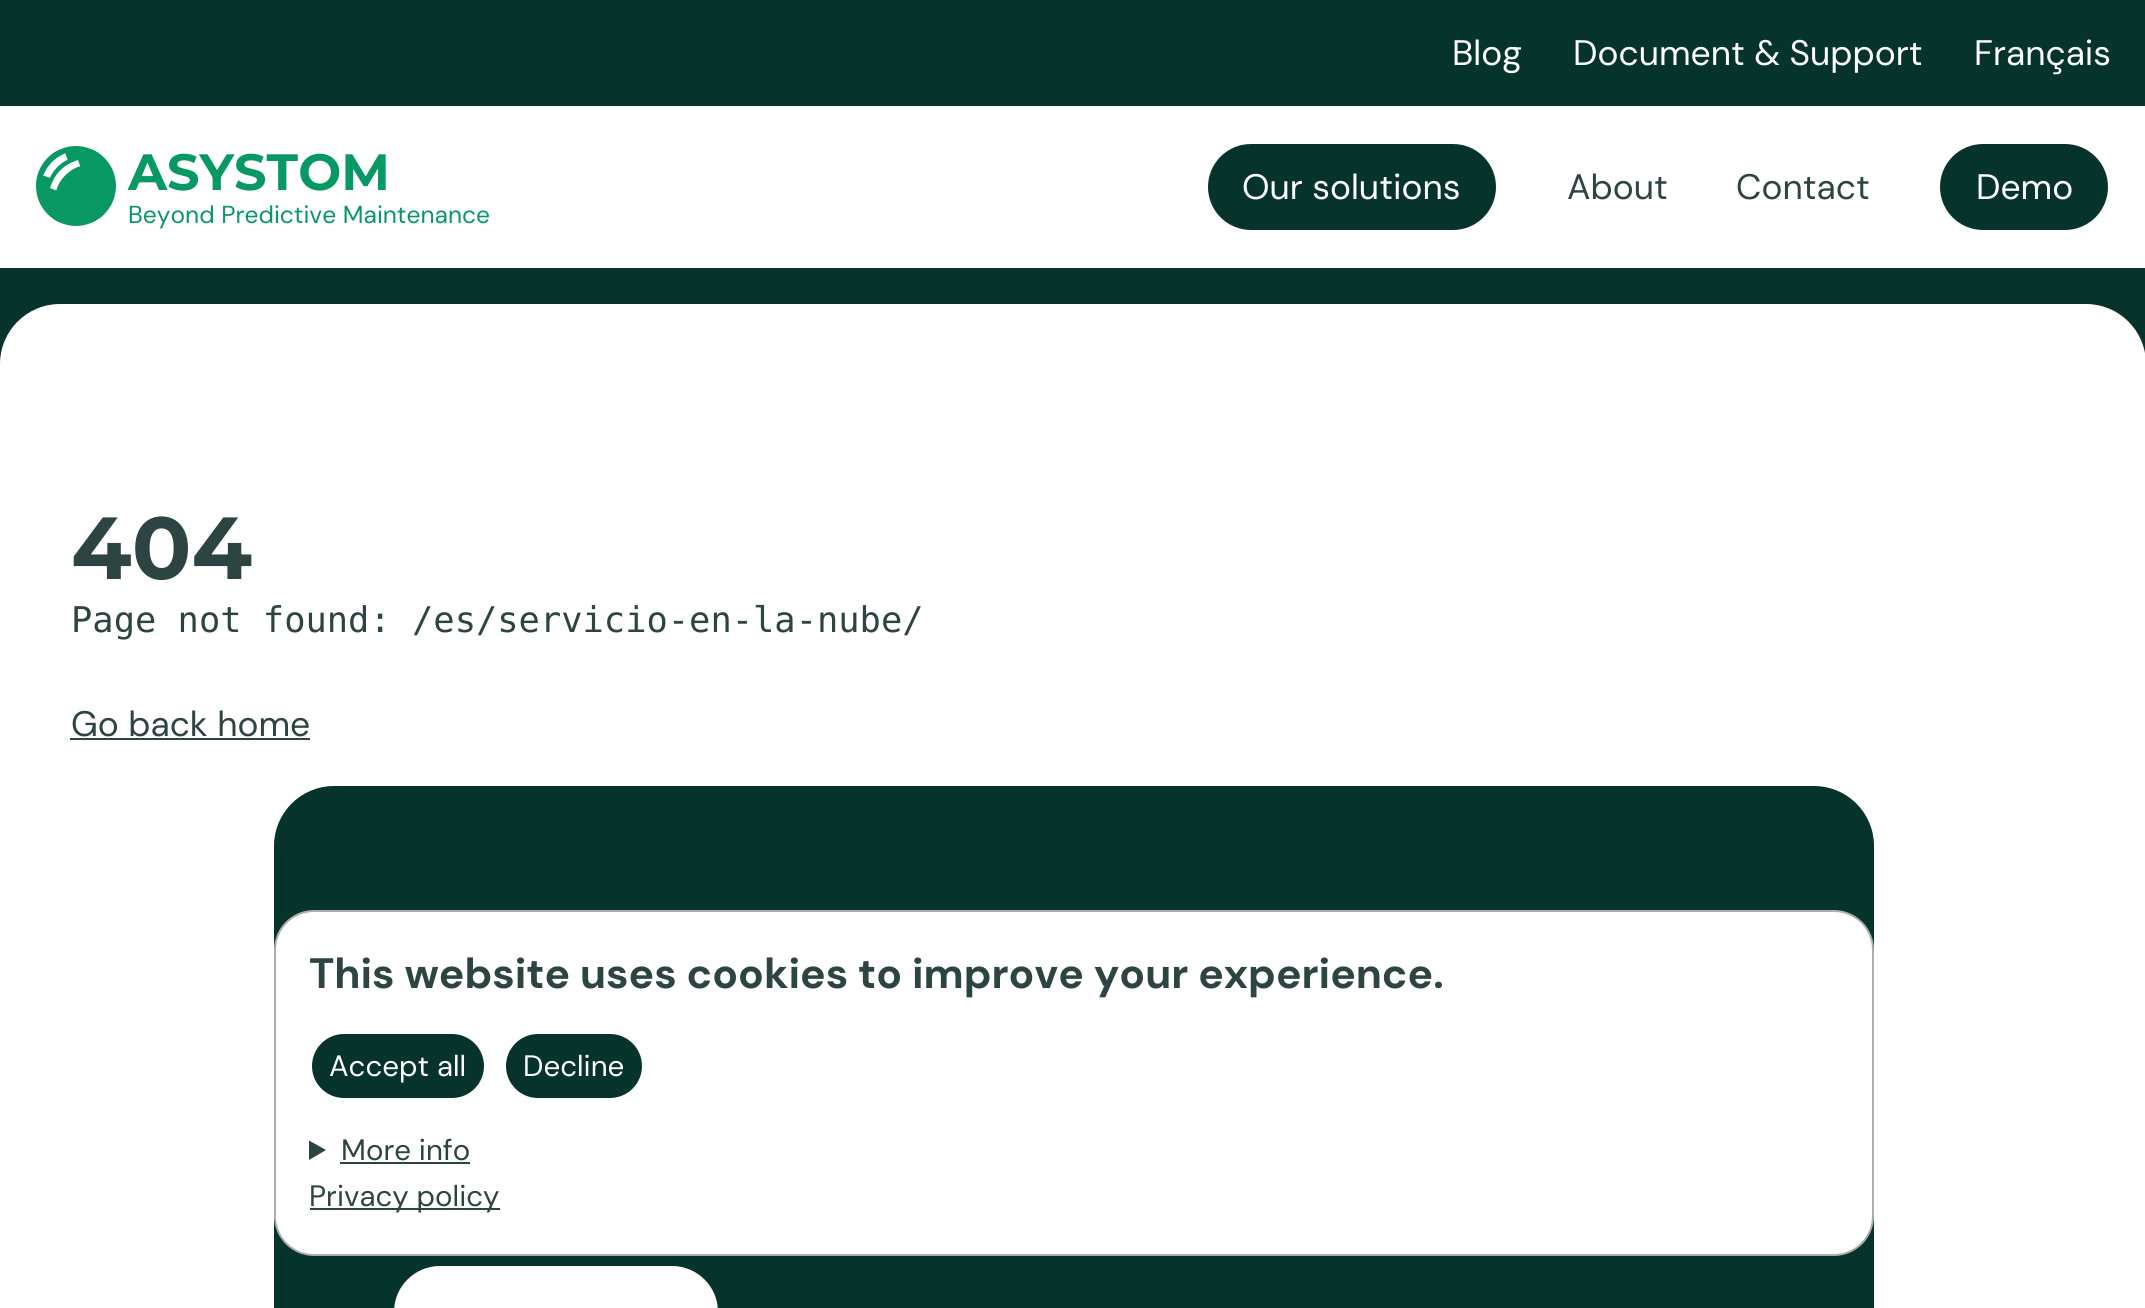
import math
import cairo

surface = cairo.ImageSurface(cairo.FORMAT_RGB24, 2145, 1308)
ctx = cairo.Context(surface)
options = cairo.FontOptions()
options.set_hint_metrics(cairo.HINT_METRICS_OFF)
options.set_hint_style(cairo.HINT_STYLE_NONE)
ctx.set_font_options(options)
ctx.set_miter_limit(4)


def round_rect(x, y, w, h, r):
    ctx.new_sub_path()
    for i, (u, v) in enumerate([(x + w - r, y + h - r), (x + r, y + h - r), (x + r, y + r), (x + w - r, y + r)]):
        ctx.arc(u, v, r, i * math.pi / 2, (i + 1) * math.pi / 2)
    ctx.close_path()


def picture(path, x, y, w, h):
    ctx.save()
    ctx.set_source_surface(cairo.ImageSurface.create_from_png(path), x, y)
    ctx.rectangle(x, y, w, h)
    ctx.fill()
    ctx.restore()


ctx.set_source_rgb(0.027, 0.2, 0.173)
ctx.paint()
ctx.set_source_rgb(1, 1, 1)
ctx.rectangle(0, 106, 2145, 162)
ctx.fill()
ctx.select_font_face("DM Sans")
ctx.set_font_size(35.4)
ctx.move_to(1452, 65)
ctx.show_text("Blog")
ctx.move_to(1573, 65)
ctx.show_text("Document & Support")
ctx.move_to(1974, 65)
ctx.show_text("Français")
picture("img1.png", 36, 146, 80, 80)
ctx.select_font_face("Montserrat", cairo.FONT_SLANT_NORMAL, cairo.FONT_WEIGHT_BOLD)
ctx.set_font_size(51)
ctx.set_source_rgb(0.031, 0.596, 0.392)
ctx.move_to(128, 190)
ctx.show_text("ASYSTOM")
ctx.select_font_face("DM Sans")
ctx.set_font_size(24.6)
ctx.move_to(128, 223)
ctx.show_text("Beyond Predictive Maintenance")
ctx.set_source_rgb(0.027, 0.2, 0.173)
round_rect(1207, 143, 290, 88, 44)
ctx.fill_preserve()
ctx.set_source_rgb(1, 1, 1)
ctx.stroke()
ctx.set_font_size(35.4)
ctx.move_to(1242, 199)
ctx.show_text("Our solutions")
ctx.set_source_rgb(0.176, 0.271, 0.259)
ctx.move_to(1567, 199)
ctx.show_text("About")
ctx.move_to(1736, 199)
ctx.show_text("Contact")
ctx.set_source_rgb(0.027, 0.2, 0.173)
round_rect(1939, 143, 170, 88, 44)
ctx.fill_preserve()
ctx.set_source_rgb(1, 1, 1)
ctx.stroke()
ctx.move_to(1976, 199)
ctx.show_text("Demo")
round_rect(0, 304, 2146, 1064, 60)
ctx.fill()
ctx.select_font_face("Montserrat", cairo.FONT_SLANT_NORMAL, cairo.FONT_WEIGHT_BOLD)
ctx.set_font_size(88)
ctx.set_source_rgb(0.176, 0.271, 0.259)
ctx.move_to(71, 579)
ctx.show_text("404")
ctx.select_font_face("DejaVu Sans Mono")
ctx.set_font_size(35.4)
ctx.move_to(71, 632)
ctx.show_text("Page not found: /es/servicio-en-la-nube/")
ctx.select_font_face("DM Sans")
ctx.move_to(71, 736)
ctx.show_text("Go back home")
ctx.rectangle(70, 738, 240, 2)
ctx.fill()
ctx.set_source_rgb(0.027, 0.2, 0.173)
round_rect(274, 786, 1600, 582, 60)
ctx.fill()
ctx.set_source_rgb(1, 1, 1)
round_rect(395, 1267, 322, 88, 45)
ctx.fill_preserve()
ctx.stroke()
round_rect(275, 911, 1598, 344, 39)
ctx.fill_preserve()
ctx.set_source_rgb(0.682, 0.682, 0.682)
ctx.stroke()
ctx.select_font_face("DM Sans", cairo.FONT_SLANT_NORMAL, cairo.FONT_WEIGHT_BOLD)
ctx.set_font_size(42.5)
ctx.set_source_rgb(0.176, 0.271, 0.259)
ctx.move_to(309, 988)
ctx.show_text("This website uses cookies to improve your experience.")
ctx.set_source_rgb(0.027, 0.2, 0.173)
round_rect(311, 1033, 174, 66, 33)
ctx.fill_preserve()
ctx.set_source_rgb(1, 1, 1)
ctx.stroke()
ctx.select_font_face("DM Sans")
ctx.set_font_size(29.5)
ctx.move_to(329, 1076)
ctx.show_text("Accept all")
ctx.set_source_rgb(0.027, 0.2, 0.173)
round_rect(505, 1033, 138, 66, 33)
ctx.fill_preserve()
ctx.set_source_rgb(1, 1, 1)
ctx.stroke()
ctx.move_to(523, 1076)
ctx.show_text("Decline")
ctx.set_source_rgb(0.176, 0.271, 0.259)
ctx.new_path()
ctx.move_to(309, 1140.5)
ctx.line_to(326, 1150)
ctx.line_to(309, 1160)
ctx.close_path()
ctx.fill()
ctx.move_to(341, 1160)
ctx.show_text("More info")
ctx.rectangle(340, 1162, 130, 2)
ctx.fill()
ctx.rectangle(310, 1208, 190, 2)
ctx.fill()
ctx.move_to(309, 1206)
ctx.show_text("Privacy policy")
surface.write_to_png("page.png")
